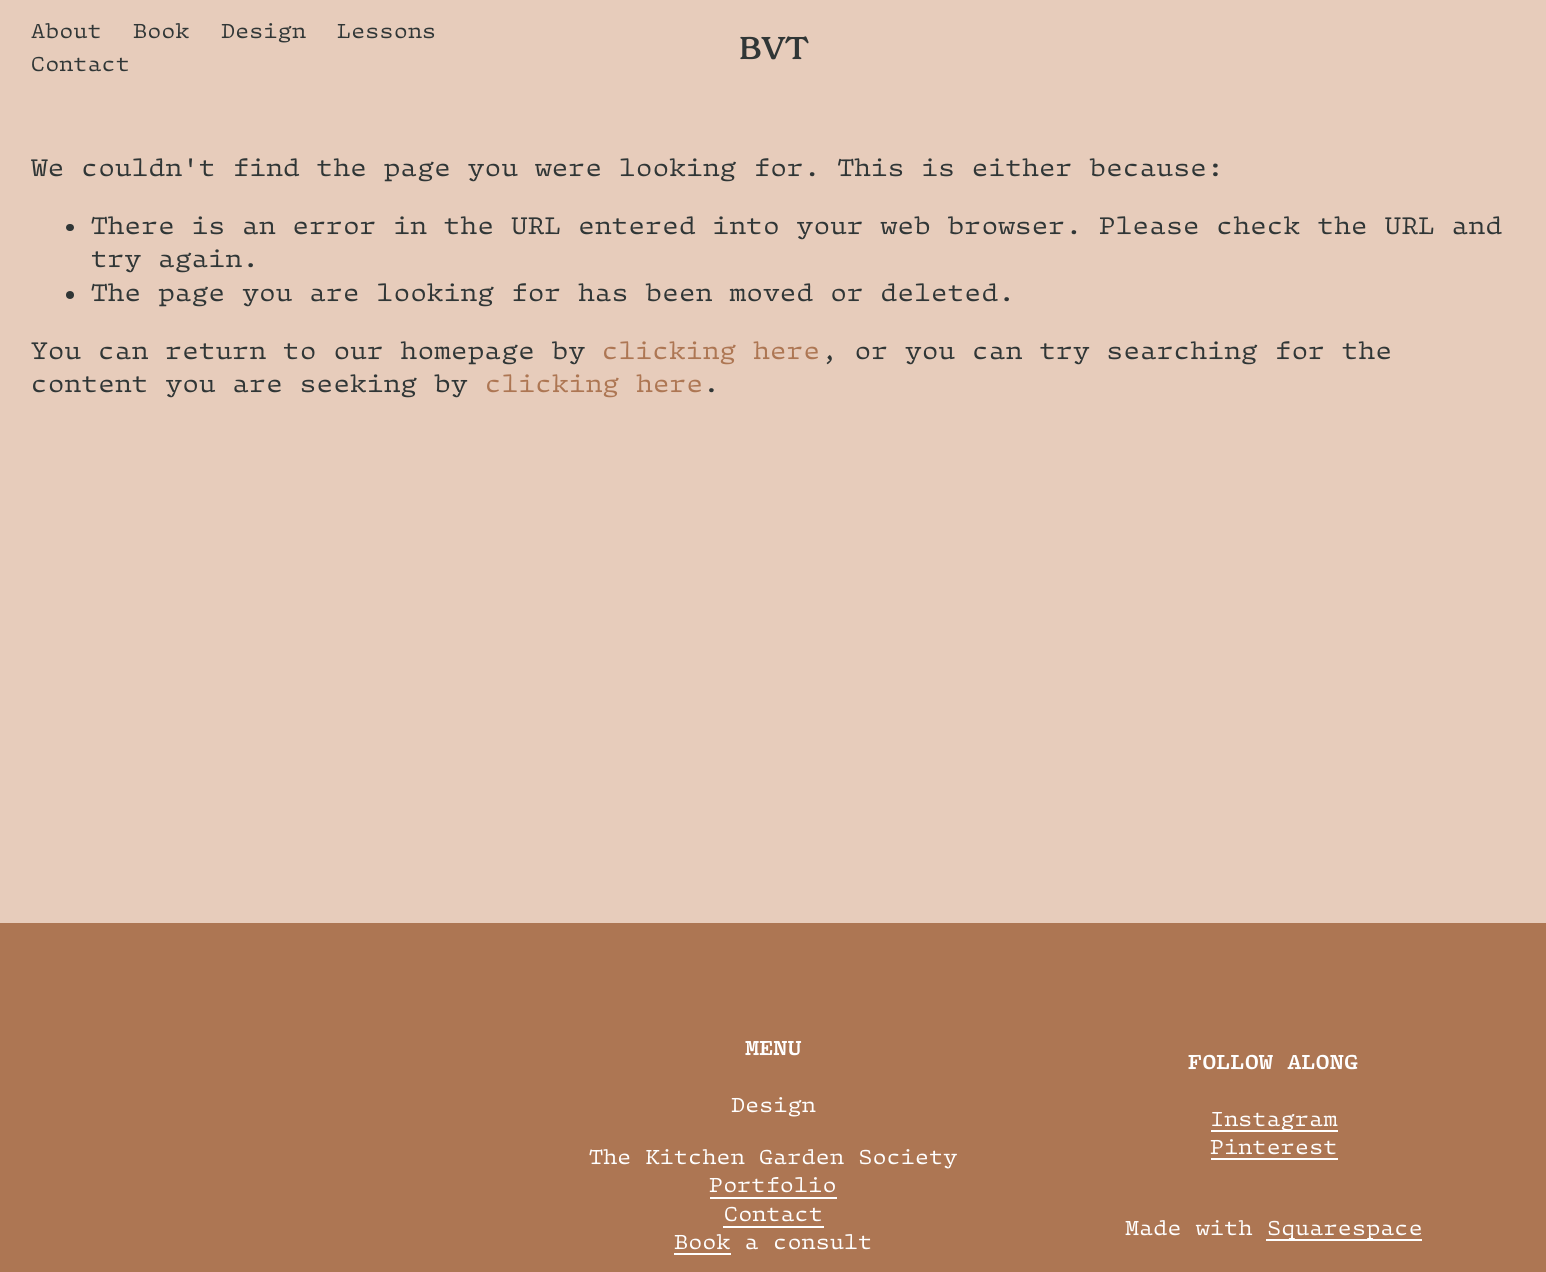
import math
import cairo

surface = cairo.ImageSurface(cairo.FORMAT_RGB24, 1546, 1272)
ctx = cairo.Context(surface)
options = cairo.FontOptions()
options.set_hint_metrics(cairo.HINT_METRICS_OFF)
options.set_hint_style(cairo.HINT_STYLE_NONE)
ctx.set_font_options(options)
ctx.set_miter_limit(4)


def round_rect(x, y, w, h, r):
    ctx.new_sub_path()
    for i, (u, v) in enumerate([(x + w - r, y + h - r), (x + r, y + h - r), (x + r, y + r), (x + w - r, y + r)]):
        ctx.arc(u, v, r, i * math.pi / 2, (i + 1) * math.pi / 2)
    ctx.close_path()


ctx.set_source_rgb(0.906, 0.8, 0.733)
ctx.paint()
ctx.select_font_face("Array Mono")
ctx.set_font_size(20.25)
ctx.set_source_rgb(0.188, 0.212, 0.212)
ctx.move_to(31, 38)
ctx.show_text("About")
ctx.move_to(133, 38)
ctx.show_text("Book")
ctx.move_to(221, 38)
ctx.show_text("Design")
ctx.move_to(337, 38)
ctx.show_text("Lessons")
ctx.move_to(31, 71)
ctx.show_text("Contact")
ctx.select_font_face("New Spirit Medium")
ctx.set_font_size(31)
ctx.move_to(739, 59)
ctx.show_text("BVT")
ctx.select_font_face("Array Mono")
ctx.set_font_size(24)
ctx.move_to(31, 176)
ctx.show_text("We couldn't find the page you were looking for. This is either because:")
round_rect(66, 224, 8, 7, 3.5)
ctx.fill()
ctx.move_to(91, 234)
ctx.show_text("There is an error in the URL entered into your web browser. Please check the URL and")
ctx.move_to(91, 267)
ctx.show_text("try again.")
ctx.new_path()
ctx.arc(70, 295, 4, 0, 2 * math.pi)
ctx.fill()
ctx.move_to(91, 301)
ctx.show_text("The page you are looking for has been moved or deleted.")
ctx.move_to(31, 359)
ctx.show_text("You can return to our homepage by")
ctx.set_source_rgb(0.678, 0.463, 0.325)
ctx.move_to(602, 359)
ctx.show_text("clicking here")
ctx.set_source_rgb(0.188, 0.212, 0.212)
ctx.move_to(821, 359)
ctx.show_text(", or you can try searching for the")
ctx.move_to(31, 392)
ctx.show_text("content you are seeking by")
ctx.set_source_rgb(0.678, 0.463, 0.325)
ctx.move_to(485, 392)
ctx.show_text("clicking here")
ctx.set_source_rgb(0.188, 0.212, 0.212)
ctx.move_to(703, 392)
ctx.show_text(".")
ctx.set_source_rgb(0.678, 0.463, 0.325)
ctx.rectangle(0, 923, 1546, 349)
ctx.fill()
ctx.select_font_face("Array Mono", cairo.FONT_SLANT_NORMAL, cairo.FONT_WEIGHT_BOLD)
ctx.set_font_size(20.25)
ctx.set_source_rgb(1, 1, 1)
ctx.move_to(745, 1055)
ctx.show_text("MENU")
ctx.select_font_face("Array Mono")
ctx.move_to(731, 1112)
ctx.show_text("Design")
ctx.move_to(589, 1164)
ctx.show_text("The Kitchen Garden Society")
ctx.move_to(709, 1192)
ctx.show_text("Portfolio")
ctx.rectangle(710, 1197, 127, 2)
ctx.fill()
ctx.move_to(724, 1221)
ctx.show_text("Contact")
ctx.rectangle(723, 1226, 101, 2)
ctx.fill()
ctx.move_to(674, 1249)
ctx.show_text("Book a consult")
ctx.rectangle(674, 1253, 57, 2)
ctx.fill()
ctx.select_font_face("Array Mono", cairo.FONT_SLANT_NORMAL, cairo.FONT_WEIGHT_BOLD)
ctx.move_to(1188, 1069)
ctx.show_text("FOLLOW ALONG")
ctx.rectangle(1211, 1130, 127, 2)
ctx.fill()
ctx.select_font_face("Array Mono")
ctx.move_to(1210, 1126)
ctx.show_text("Instagram")
ctx.move_to(1210, 1154)
ctx.show_text("Pinterest")
ctx.rectangle(1211, 1158, 127, 2)
ctx.fill()
ctx.move_to(1125, 1235)
ctx.show_text("Made with")
ctx.rectangle(1266, 1239, 156, 2)
ctx.fill()
ctx.move_to(1267, 1235)
ctx.show_text("Squarespace")
surface.write_to_png("page.png")
